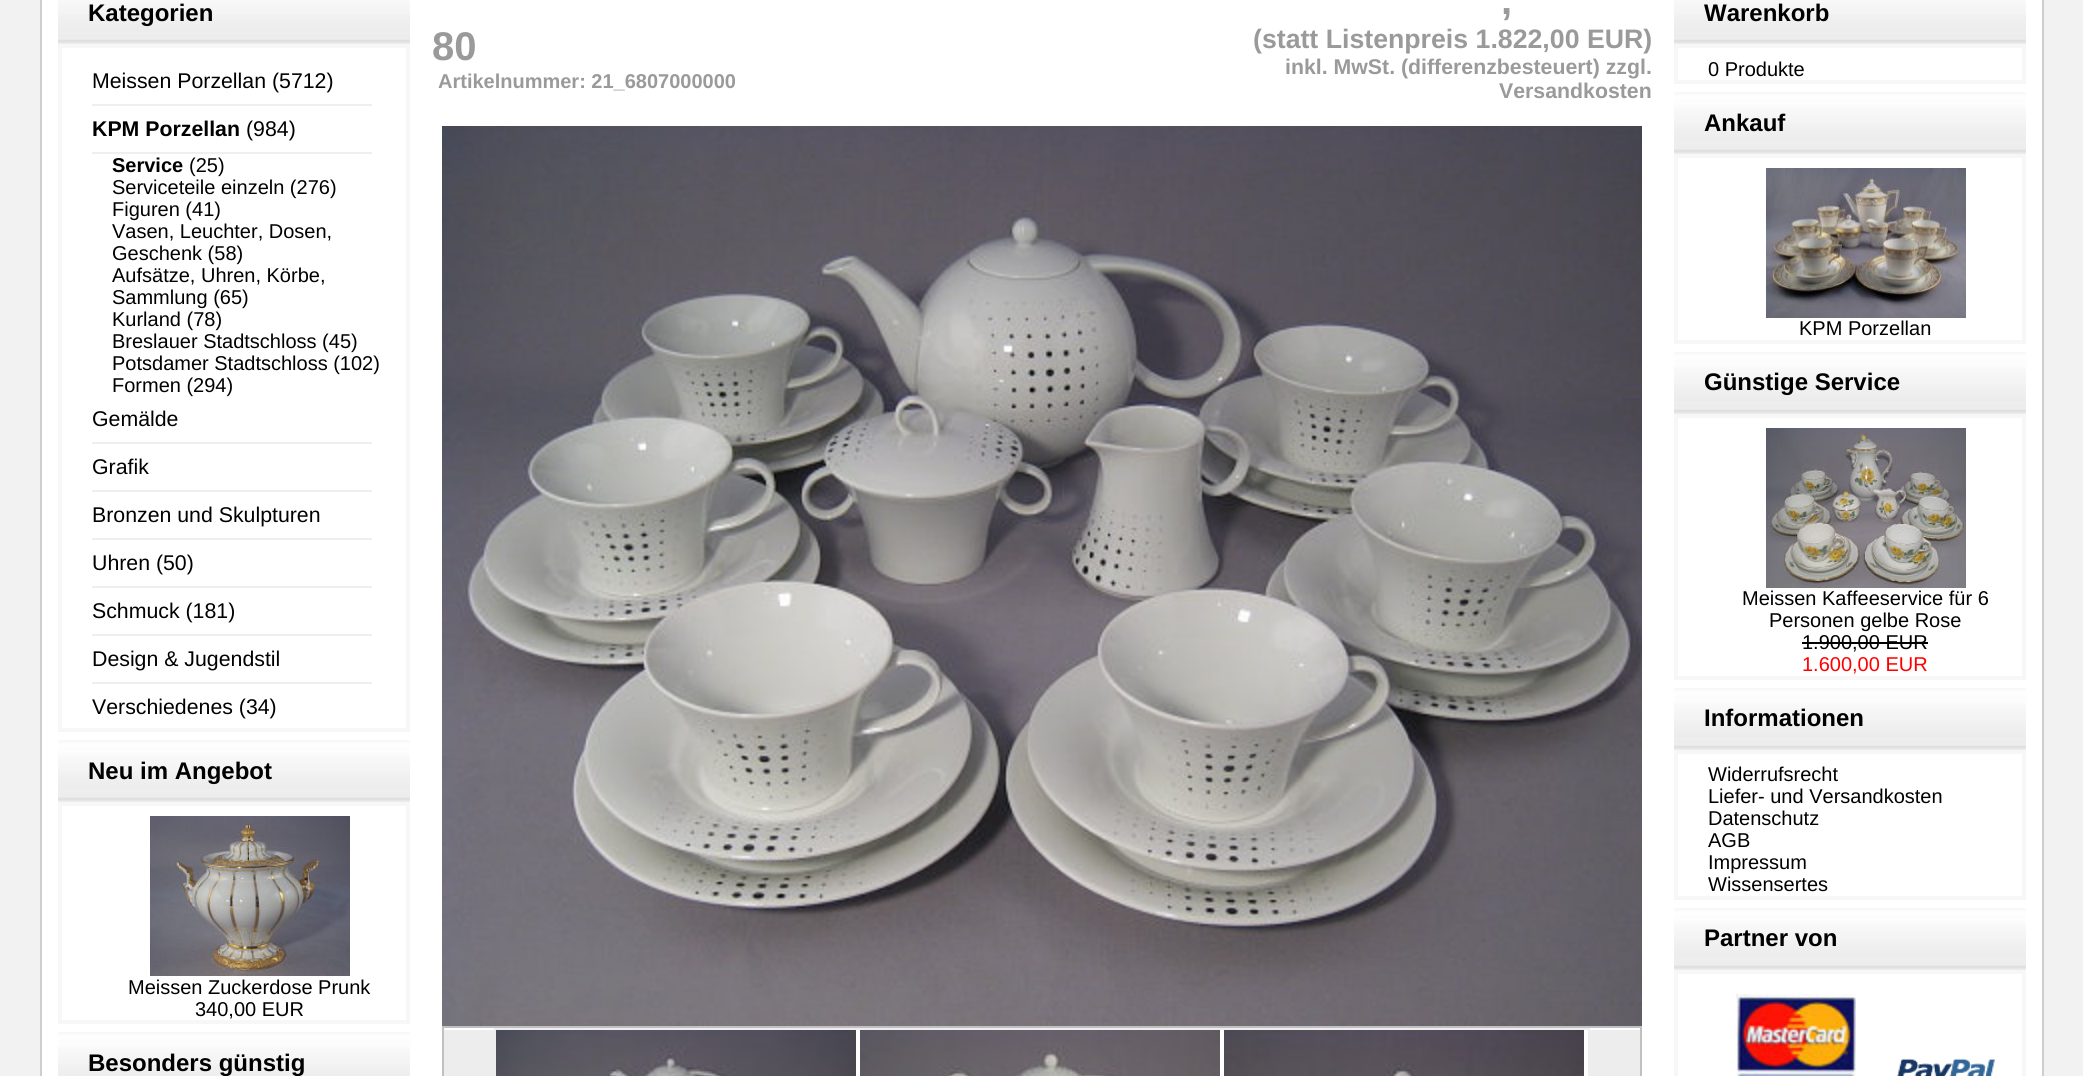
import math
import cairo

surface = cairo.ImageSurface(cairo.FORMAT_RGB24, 2083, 1076)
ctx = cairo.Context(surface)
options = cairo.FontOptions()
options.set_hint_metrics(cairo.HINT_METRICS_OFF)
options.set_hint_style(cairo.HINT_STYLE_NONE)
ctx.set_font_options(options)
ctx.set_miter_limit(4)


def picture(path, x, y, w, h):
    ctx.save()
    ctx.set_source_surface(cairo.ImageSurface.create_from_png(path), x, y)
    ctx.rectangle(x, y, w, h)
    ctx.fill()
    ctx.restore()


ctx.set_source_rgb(0.949, 0.949, 0.949)
ctx.paint()
ctx.set_source_rgb(1, 1, 1)
ctx.rectangle(42, 0, 2000, 1076)
ctx.fill()
ctx.set_source_rgb(0.808, 0.808, 0.808)
ctx.rectangle(2042, 0, 2, 1076)
ctx.fill()
ctx.rectangle(40, 0, 2, 1076)
ctx.fill()
picture("img1.png", 58, 0, 352, 44)
ctx.select_font_face("Liberation Sans", cairo.FONT_SLANT_NORMAL, cairo.FONT_WEIGHT_BOLD)
ctx.set_font_size(24)
ctx.set_source_rgb(0, 0, 0)
ctx.move_to(88, 21)
ctx.show_text("Kategorien")
ctx.rectangle(59, 45, 350, 686)
ctx.set_source_rgb(0.965, 0.965, 0.965)
ctx.stroke()
ctx.rectangle(61, 47, 346, 682)
ctx.stroke()
ctx.select_font_face("Liberation Sans")
ctx.set_font_size(21.3)
ctx.set_source_rgb(0, 0, 0)
ctx.move_to(92, 88)
ctx.show_text("Meissen Porzellan (5712)")
ctx.set_source_rgb(0.937, 0.937, 0.937)
ctx.rectangle(92, 104, 280, 2)
ctx.fill()
ctx.select_font_face("Liberation Sans", cairo.FONT_SLANT_NORMAL, cairo.FONT_WEIGHT_BOLD)
ctx.set_source_rgb(0, 0, 0)
ctx.move_to(92, 136)
ctx.show_text("KPM Porzellan")
ctx.select_font_face("Liberation Sans")
ctx.move_to(246, 136)
ctx.show_text("(984)")
ctx.set_source_rgb(0.937, 0.937, 0.937)
ctx.rectangle(92, 152, 280, 2)
ctx.fill()
ctx.select_font_face("Liberation Sans", cairo.FONT_SLANT_NORMAL, cairo.FONT_WEIGHT_BOLD)
ctx.set_font_size(20)
ctx.set_source_rgb(0, 0, 0)
ctx.move_to(112, 172)
ctx.show_text("Service")
ctx.select_font_face("Liberation Sans")
ctx.move_to(189, 172)
ctx.show_text("(25)")
ctx.move_to(112, 194)
ctx.show_text("Serviceteile einzeln (276)")
ctx.move_to(112, 216)
ctx.show_text("Figuren (41)")
ctx.move_to(112, 238)
ctx.show_text("Vasen, Leuchter, Dosen,")
ctx.move_to(112, 260)
ctx.show_text("Geschenk (58)")
ctx.move_to(112, 282)
ctx.show_text("Aufsätze, Uhren, Körbe,")
ctx.move_to(112, 304)
ctx.show_text("Sammlung (65)")
ctx.move_to(112, 326)
ctx.show_text("Kurland (78)")
ctx.move_to(112, 348)
ctx.show_text("Breslauer Stadtschloss (45)")
ctx.move_to(112, 370)
ctx.show_text("Potsdamer Stadtschloss (102)")
ctx.move_to(112, 392)
ctx.show_text("Formen (294)")
ctx.set_font_size(21.3)
ctx.move_to(92, 426)
ctx.show_text("Gemälde")
ctx.set_source_rgb(0.937, 0.937, 0.937)
ctx.rectangle(92, 442, 280, 2)
ctx.fill()
ctx.set_source_rgb(0, 0, 0)
ctx.move_to(92, 474)
ctx.show_text("Grafik")
ctx.set_source_rgb(0.937, 0.937, 0.937)
ctx.rectangle(92, 490, 280, 2)
ctx.fill()
ctx.set_source_rgb(0, 0, 0)
ctx.move_to(92, 522)
ctx.show_text("Bronzen und Skulpturen")
ctx.set_source_rgb(0.937, 0.937, 0.937)
ctx.rectangle(92, 538, 280, 2)
ctx.fill()
ctx.set_source_rgb(0, 0, 0)
ctx.move_to(92, 570)
ctx.show_text("Uhren (50)")
ctx.set_source_rgb(0.937, 0.937, 0.937)
ctx.rectangle(92, 586, 280, 2)
ctx.fill()
ctx.set_source_rgb(0, 0, 0)
ctx.move_to(92, 618)
ctx.show_text("Schmuck (181)")
ctx.set_source_rgb(0.937, 0.937, 0.937)
ctx.rectangle(92, 634, 280, 2)
ctx.fill()
ctx.set_source_rgb(0, 0, 0)
ctx.move_to(92, 666)
ctx.show_text("Design & Jugendstil")
ctx.set_source_rgb(0.937, 0.937, 0.937)
ctx.rectangle(92, 682, 280, 2)
ctx.fill()
ctx.set_source_rgb(0, 0, 0)
ctx.move_to(92, 714)
ctx.show_text("Verschiedenes (34)")
picture("img2.png", 58, 740, 352, 62)
ctx.select_font_face("Liberation Sans", cairo.FONT_SLANT_NORMAL, cairo.FONT_WEIGHT_BOLD)
ctx.set_font_size(24)
ctx.move_to(88, 779)
ctx.show_text("Neu im Angebot")
ctx.rectangle(59, 803, 350, 220)
ctx.set_source_rgb(0.965, 0.965, 0.965)
ctx.stroke()
ctx.rectangle(61, 805, 346, 216)
ctx.stroke()
picture("img3.png", 150, 816, 200, 160)
ctx.select_font_face("Liberation Sans")
ctx.set_font_size(20)
ctx.set_source_rgb(0, 0, 0)
ctx.move_to(128, 994)
ctx.show_text("Meissen Zuckerdose Prunk")
ctx.move_to(195, 1016)
ctx.show_text("340,00 EUR")
picture("img4.png", 58, 1032, 352, 44)
ctx.select_font_face("Liberation Sans", cairo.FONT_SLANT_NORMAL, cairo.FONT_WEIGHT_BOLD)
ctx.set_font_size(24)
ctx.move_to(88, 1071)
ctx.show_text("Besonders günstig")
ctx.set_font_size(40)
ctx.set_source_rgb(0.604, 0.604, 0.604)
ctx.move_to(432, 60)
ctx.show_text("80")
ctx.set_font_size(20)
ctx.move_to(438, 88)
ctx.show_text("Artikelnummer: 21_6807000000")
ctx.set_font_size(40)
ctx.move_to(1501, 14)
ctx.show_text(",")
ctx.set_font_size(26.7)
ctx.move_to(1253, 48)
ctx.show_text("(statt Listenpreis 1.822,00 EUR)")
ctx.set_font_size(21.3)
ctx.move_to(1285, 74)
ctx.show_text("inkl. MwSt. (differenzbesteuert) zzgl.")
ctx.move_to(1499, 98)
ctx.show_text("Versandkosten")
picture("img5.png", 442, 126, 1200, 900)
ctx.rectangle(443, 1027, 1198, 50)
ctx.set_source_rgb(0.753, 0.753, 0.753)
ctx.stroke()
ctx.set_source_rgb(0.929, 0.929, 0.929)
ctx.rectangle(444, 1030, 50, 46)
ctx.fill()
ctx.rectangle(495, 1029, 1094, 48)
ctx.stroke()
picture("img6.png", 496, 1030, 360, 46)
picture("img7.png", 860, 1030, 360, 46)
picture("img8.png", 1224, 1030, 360, 46)
ctx.rectangle(1590, 1030, 50, 46)
ctx.fill()
picture("img1.png", 1674, 0, 352, 44)
ctx.set_font_size(24)
ctx.set_source_rgb(0, 0, 0)
ctx.move_to(1704, 21)
ctx.show_text("Warenkorb")
ctx.rectangle(1675, 45, 350, 38)
ctx.set_source_rgb(0.965, 0.965, 0.965)
ctx.stroke()
ctx.rectangle(1677, 47, 346, 34)
ctx.stroke()
ctx.select_font_face("Liberation Sans")
ctx.set_font_size(20)
ctx.set_source_rgb(0, 0, 0)
ctx.move_to(1708, 76)
ctx.show_text("0 Produkte")
picture("img2.png", 1674, 92, 352, 62)
ctx.select_font_face("Liberation Sans", cairo.FONT_SLANT_NORMAL, cairo.FONT_WEIGHT_BOLD)
ctx.set_font_size(24)
ctx.move_to(1704, 131)
ctx.show_text("Ankauf")
ctx.rectangle(1675, 155, 350, 188)
ctx.set_source_rgb(0.965, 0.965, 0.965)
ctx.stroke()
ctx.rectangle(1677, 157, 346, 184)
ctx.stroke()
picture("img9.png", 1766, 168, 200, 150)
ctx.select_font_face("Liberation Sans")
ctx.set_font_size(20)
ctx.set_source_rgb(0, 0, 0)
ctx.move_to(1799, 335)
ctx.show_text("KPM Porzellan")
picture("img2.png", 1674, 352, 352, 62)
ctx.select_font_face("Liberation Sans", cairo.FONT_SLANT_NORMAL, cairo.FONT_WEIGHT_BOLD)
ctx.set_font_size(24)
ctx.move_to(1704, 390)
ctx.show_text("Günstige Service")
ctx.rectangle(1675, 415, 350, 264)
ctx.set_source_rgb(0.965, 0.965, 0.965)
ctx.stroke()
ctx.rectangle(1677, 417, 346, 260)
ctx.stroke()
picture("img10.png", 1766, 428, 200, 160)
ctx.select_font_face("Liberation Sans")
ctx.set_font_size(20)
ctx.set_source_rgb(0, 0, 0)
ctx.move_to(1742, 605)
ctx.show_text("Meissen Kaffeeservice für 6")
ctx.move_to(1769, 627)
ctx.show_text("Personen gelbe Rose")
ctx.move_to(1802, 649)
ctx.show_text("1.900,00 EUR")
ctx.rectangle(1802, 642, 126, 2)
ctx.fill()
ctx.set_source_rgb(1, 0, 0)
ctx.move_to(1802, 671)
ctx.show_text("1.600,00 EUR")
picture("img2.png", 1674, 688, 352, 62)
ctx.select_font_face("Liberation Sans", cairo.FONT_SLANT_NORMAL, cairo.FONT_WEIGHT_BOLD)
ctx.set_font_size(24)
ctx.set_source_rgb(0, 0, 0)
ctx.move_to(1704, 726)
ctx.show_text("Informationen")
ctx.rectangle(1675, 751, 350, 148)
ctx.set_source_rgb(0.965, 0.965, 0.965)
ctx.stroke()
ctx.rectangle(1677, 753, 346, 144)
ctx.stroke()
ctx.select_font_face("Liberation Sans")
ctx.set_font_size(20)
ctx.set_source_rgb(0, 0, 0)
ctx.move_to(1708, 781)
ctx.show_text("Widerrufsrecht")
ctx.move_to(1708, 803)
ctx.show_text("Liefer- und Versandkosten")
ctx.move_to(1708, 825)
ctx.show_text("Datenschutz")
ctx.move_to(1708, 847)
ctx.show_text("AGB")
ctx.move_to(1708, 869)
ctx.show_text("Impressum")
ctx.move_to(1708, 891)
ctx.show_text("Wissensertes")
picture("img2.png", 1674, 908, 352, 62)
ctx.select_font_face("Liberation Sans", cairo.FONT_SLANT_NORMAL, cairo.FONT_WEIGHT_BOLD)
ctx.set_font_size(24)
ctx.move_to(1704, 946)
ctx.show_text("Partner von")
ctx.rectangle(1675, 971, 350, 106)
ctx.set_source_rgb(0.965, 0.965, 0.965)
ctx.stroke()
ctx.rectangle(1677, 973, 346, 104)
ctx.stroke()
picture("img11.png", 1736, 994, 120, 82)
picture("img12.png", 1897, 1058, 98, 18)
surface.write_to_png("page.png")
